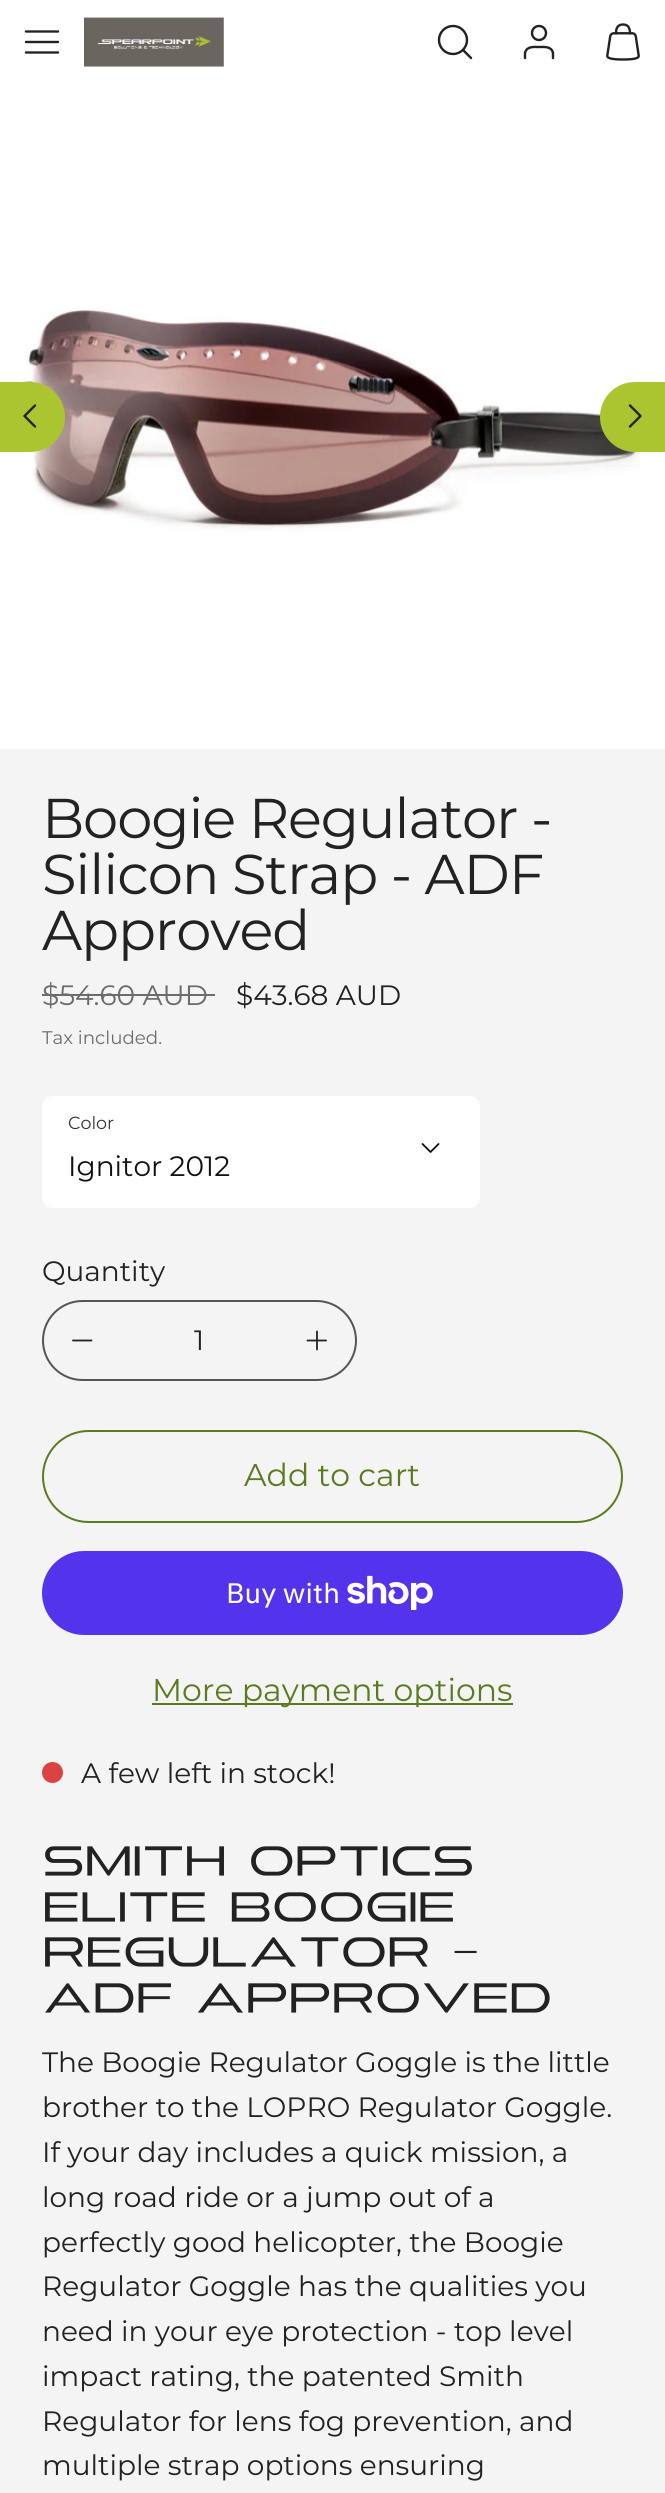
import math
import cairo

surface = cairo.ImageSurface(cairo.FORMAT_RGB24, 665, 2493)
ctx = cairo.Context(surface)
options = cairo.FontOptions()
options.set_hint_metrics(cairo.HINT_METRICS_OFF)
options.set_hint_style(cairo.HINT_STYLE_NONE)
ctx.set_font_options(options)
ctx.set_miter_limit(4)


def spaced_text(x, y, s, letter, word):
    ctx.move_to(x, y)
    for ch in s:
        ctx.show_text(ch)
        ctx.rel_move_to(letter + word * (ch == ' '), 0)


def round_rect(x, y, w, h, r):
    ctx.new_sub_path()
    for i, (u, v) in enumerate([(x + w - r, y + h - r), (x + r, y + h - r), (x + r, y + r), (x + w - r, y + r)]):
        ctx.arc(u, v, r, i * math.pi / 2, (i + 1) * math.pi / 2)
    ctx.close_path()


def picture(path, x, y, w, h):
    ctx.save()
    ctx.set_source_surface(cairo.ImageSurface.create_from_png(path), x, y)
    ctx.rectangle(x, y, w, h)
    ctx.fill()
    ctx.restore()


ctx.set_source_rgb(0.957, 0.957, 0.957)
ctx.paint()
ctx.set_source_rgb(1, 1, 1)
ctx.rectangle(0, 0, 665, 749)
ctx.fill()
ctx.new_path()
ctx.move_to(26, 42)
ctx.line_to(58, 42)
ctx.move_to(26, 31.5)
ctx.line_to(58, 31.5)
ctx.move_to(26, 52.5)
ctx.line_to(58, 52.5)
ctx.set_source_rgb(0.133, 0.133, 0.133)
ctx.set_line_width(2.4)
ctx.set_line_cap(cairo.LINE_CAP_ROUND)
ctx.set_line_join(cairo.LINE_JOIN_ROUND)
ctx.stroke()
picture("img1.png", 84, 17, 140, 50)
ctx.arc(453, 40, 14, 0, 2 * math.pi)
ctx.set_line_cap(cairo.LINE_CAP_BUTT)
ctx.set_line_join(cairo.LINE_JOIN_MITER)
ctx.stroke()
ctx.new_path()
ctx.move_to(471, 58)
ctx.line_to(463, 50)
ctx.set_line_cap(cairo.LINE_CAP_ROUND)
ctx.set_line_join(cairo.LINE_JOIN_ROUND)
ctx.stroke()
ctx.new_path()
ctx.move_to(553, 58)
ctx.line_to(553, 53)
ctx.curve_to(551.5, 46, 544, 47, 539, 47)
ctx.curve_to(534, 47, 526.5, 46, 525, 53)
ctx.line_to(525, 58)
ctx.stroke()
ctx.arc(539, 33, 7, 0, 2 * math.pi)
ctx.set_line_cap(cairo.LINE_CAP_BUTT)
ctx.set_line_join(cairo.LINE_JOIN_MITER)
ctx.stroke()
picture("img2.png", 606, 23, 34, 38)
picture("img3.png", 22, 308, 618, 224)
ctx.set_source_rgb(0.671, 0.773, 0.188)
ctx.new_path()
ctx.move_to(0, 382)
ctx.line_to(30, 382)
ctx.curve_to(49.5, 382, 65, 397.5, 65, 417)
ctx.curve_to(65, 436.5, 49.5, 452, 30, 452)
ctx.line_to(0, 452)
ctx.close_path()
ctx.fill()
ctx.new_path()
ctx.move_to(35, 426.5)
ctx.line_to(24.5, 416)
ctx.line_to(35, 405.5)
ctx.set_source_rgb(0.133, 0.133, 0.133)
ctx.set_line_cap(cairo.LINE_CAP_ROUND)
ctx.set_line_join(cairo.LINE_JOIN_ROUND)
ctx.stroke()
ctx.set_source_rgb(0.671, 0.773, 0.188)
ctx.new_path()
ctx.move_to(635, 382)
ctx.line_to(665, 382)
ctx.line_to(665, 452)
ctx.line_to(635, 452)
ctx.curve_to(615.5, 452, 600, 436.5, 600, 417)
ctx.curve_to(600, 397.5, 615.5, 382, 635, 382)
ctx.close_path()
ctx.fill()
ctx.new_path()
ctx.move_to(630, 426.5)
ctx.line_to(640.5, 416)
ctx.line_to(630, 405.5)
ctx.set_source_rgb(0.133, 0.133, 0.133)
ctx.stroke()
ctx.select_font_face("Montserrat")
ctx.set_font_size(56)
spaced_text(42, 838, "Boogie Regulator -", -1.1, 0)
spaced_text(42, 894, "Silicon Strap - ADF", -1.1, 0)
spaced_text(42, 950, "Approved", -1.1, 0)
ctx.set_font_size(28)
ctx.set_source_rgb(0.424, 0.424, 0.424)
ctx.move_to(42, 1005)
ctx.show_text("$54.60 AUD")
ctx.rectangle(42, 994, 173, 2)
ctx.fill()
ctx.set_source_rgb(0.133, 0.133, 0.133)
ctx.move_to(236, 1005)
ctx.show_text("$43.68 AUD")
ctx.set_font_size(18.25)
ctx.set_source_rgb(0.424, 0.424, 0.424)
ctx.move_to(42, 1044)
ctx.show_text("Tax included.")
ctx.set_source_rgb(1, 1, 1)
round_rect(42, 1096, 438, 112, 11)
ctx.fill()
ctx.set_font_size(17.5)
ctx.set_source_rgb(0.208, 0.208, 0.208)
ctx.move_to(68, 1129)
ctx.show_text("Color")
ctx.new_path()
ctx.move_to(422.5, 1144)
ctx.line_to(430.5, 1152)
ctx.line_to(438.5, 1144)
ctx.set_source_rgb(0.067, 0.067, 0.067)
ctx.set_line_width(1.8)
ctx.stroke()
ctx.set_font_size(28)
ctx.move_to(68, 1176)
ctx.show_text("Ignitor 2012")
ctx.set_source_rgb(0.133, 0.133, 0.133)
ctx.move_to(42, 1281)
ctx.show_text("Quantity")
round_rect(43, 1301, 313, 79, 39.5)
ctx.set_source_rgb(0.333, 0.333, 0.333)
ctx.set_line_width(2)
ctx.set_line_cap(cairo.LINE_CAP_BUTT)
ctx.set_line_join(cairo.LINE_JOIN_MITER)
ctx.stroke()
ctx.new_path()
ctx.move_to(73, 1340.5)
ctx.line_to(91.5, 1340.5)
ctx.set_source_rgb(0.133, 0.133, 0.133)
ctx.set_line_width(1.8)
ctx.set_line_cap(cairo.LINE_CAP_ROUND)
ctx.set_line_join(cairo.LINE_JOIN_ROUND)
ctx.stroke()
ctx.move_to(194, 1350)
ctx.show_text("1")
ctx.new_path()
ctx.move_to(317, 1331.5)
ctx.line_to(317, 1349.5)
ctx.move_to(307.5, 1340.5)
ctx.line_to(326, 1340.5)
ctx.stroke()
round_rect(43, 1431, 579, 91, 45.5)
ctx.set_source_rgb(0.353, 0.482, 0.125)
ctx.set_line_width(2)
ctx.set_line_cap(cairo.LINE_CAP_BUTT)
ctx.set_line_join(cairo.LINE_JOIN_MITER)
ctx.stroke()
ctx.set_font_size(31.5)
ctx.move_to(244, 1486)
ctx.show_text("Add to cart")
ctx.set_source_rgb(0.329, 0.2, 0.922)
round_rect(42, 1551, 581, 84, 42)
ctx.fill()
ctx.select_font_face("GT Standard")
ctx.set_font_size(28)
ctx.set_source_rgb(1, 1, 1)
ctx.move_to(226, 1603)
ctx.show_text("Buy with")
picture("img4.png", 347, 1575, 86, 35)
ctx.set_source_rgb(0.353, 0.482, 0.125)
ctx.rectangle(152, 1703, 361, 2)
ctx.fill()
ctx.select_font_face("Montserrat")
ctx.set_font_size(31.5)
ctx.move_to(152, 1701)
ctx.show_text("More payment options")
ctx.set_source_rgb(0.867, 0.259, 0.259)
ctx.new_path()
ctx.arc(52.5, 1772.5, 10.5, 0, 2 * math.pi)
ctx.fill()
ctx.set_font_size(28)
ctx.set_source_rgb(0.133, 0.133, 0.133)
ctx.move_to(81, 1783)
ctx.show_text("A few left in stock!")
ctx.select_font_face("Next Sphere")
ctx.set_font_size(45.5)
spaced_text(42, 1878, "Smith Optics", -0.9, 0)
spaced_text(42, 1924, "Elite Boogie", -0.9, 0)
spaced_text(42, 1969, "Regulator -", -0.9, 0)
spaced_text(42, 2015, "ADF Approved", -0.9, 0)
ctx.select_font_face("Montserrat")
ctx.set_font_size(28)
ctx.move_to(42, 2072)
ctx.show_text("The Boogie Regulator Goggle is the little")
ctx.move_to(42, 2117)
ctx.show_text("brother to the LOPRO Regulator Goggle.")
ctx.move_to(42, 2162)
ctx.show_text("If your day includes a quick mission, a")
ctx.move_to(42, 2207)
ctx.show_text("long road ride or a jump out of a")
ctx.move_to(42, 2252)
ctx.show_text("perfectly good helicopter, the Boogie")
ctx.move_to(42, 2296)
ctx.show_text("Regulator Goggle has the qualities you")
ctx.move_to(42, 2341)
ctx.show_text("need in your eye protection - top level")
ctx.move_to(42, 2386)
ctx.show_text("impact rating, the patented Smith")
ctx.move_to(42, 2431)
ctx.show_text("Regulator for lens fog prevention, and")
ctx.move_to(42, 2475)
ctx.show_text("multiple strap options ensuring")
surface.write_to_png("page.png")
